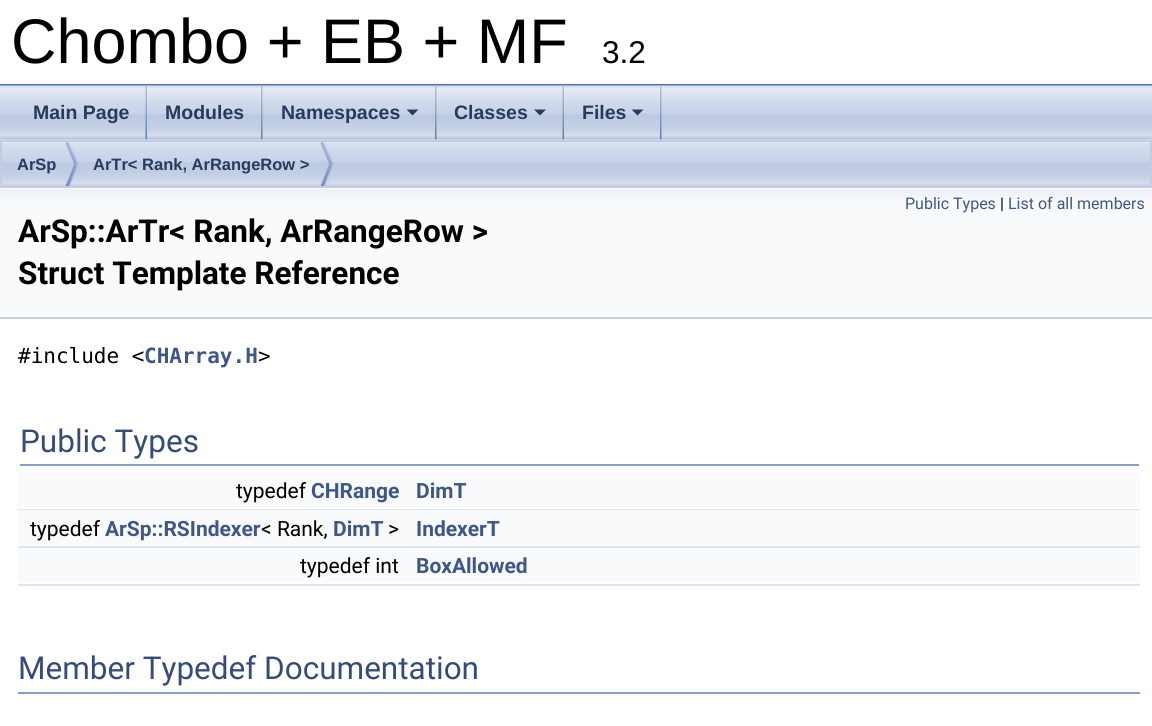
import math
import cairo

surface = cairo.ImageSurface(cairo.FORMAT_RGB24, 1152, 726)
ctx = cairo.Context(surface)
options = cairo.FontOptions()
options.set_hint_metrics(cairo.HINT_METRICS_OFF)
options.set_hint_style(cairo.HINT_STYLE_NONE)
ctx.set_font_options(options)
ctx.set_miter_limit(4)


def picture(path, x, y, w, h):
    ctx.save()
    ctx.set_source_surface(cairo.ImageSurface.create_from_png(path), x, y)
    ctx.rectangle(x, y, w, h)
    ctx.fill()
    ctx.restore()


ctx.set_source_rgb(1, 1, 1)
ctx.paint()
ctx.set_source_rgb(0.325, 0.451, 0.706)
ctx.rectangle(0, 84, 1152, 2)
ctx.fill()
ctx.select_font_face("Liberation Sans")
ctx.set_font_size(63)
ctx.set_source_rgb(0, 0, 0)
ctx.move_to(11, 63)
ctx.show_text("Chombo + EB + MF")
ctx.set_font_size(31.5)
ctx.move_to(602, 63)
ctx.show_text("3.2")
picture("img4.png", 0, 139, 1152, 47)
picture("img1.png", 0, 85, 1152, 55)
picture("img2.png", 145, 85, 2, 55)
ctx.select_font_face("Liberation Sans", cairo.FONT_SLANT_NORMAL, cairo.FONT_WEIGHT_BOLD)
ctx.set_font_size(19.5)
ctx.set_source_rgb(0.157, 0.227, 0.365)
ctx.move_to(33, 119)
ctx.show_text("Main Page")
picture("img3.png", 261, 85, 2, 55)
ctx.move_to(165, 119)
ctx.show_text("Modules")
picture("img3.png", 435, 85, 2, 55)
ctx.move_to(281, 119)
ctx.show_text("Namespaces")
ctx.new_path()
ctx.move_to(406.5, 109.5)
ctx.line_to(418.5, 109.5)
ctx.line_to(412.5, 115.5)
ctx.close_path()
ctx.fill()
picture("img2.png", 562, 85, 2, 55)
ctx.move_to(454, 119)
ctx.show_text("Classes")
ctx.new_path()
ctx.move_to(534, 109.5)
ctx.line_to(546, 109.5)
ctx.line_to(540, 115.5)
ctx.close_path()
ctx.fill()
picture("img3.png", 660, 85, 2, 55)
ctx.move_to(582, 119)
ctx.show_text("Files")
ctx.new_path()
ctx.move_to(631.5, 109.5)
ctx.line_to(643.5, 109.5)
ctx.line_to(637.5, 115.5)
ctx.close_path()
ctx.fill()
ctx.rectangle(1, 141, 1150, 46)
ctx.set_source_rgb(0.761, 0.804, 0.894)
ctx.stroke()
picture("img5.png", 66, 142, 12, 44)
ctx.set_font_size(16.5)
ctx.set_source_rgb(0.157, 0.227, 0.365)
ctx.move_to(17, 170)
ctx.show_text("ArSp")
picture("img6.png", 321, 142, 12, 44)
ctx.move_to(93, 170)
ctx.show_text("ArTr< Rank, ArRangeRow >")
ctx.set_source_rgb(0.976, 0.98, 0.988)
ctx.rectangle(0, 188, 1152, 129)
ctx.fill()
picture("img7.png", 0, 189, 1152, 10)
ctx.set_source_rgb(0.769, 0.812, 0.898)
ctx.rectangle(0, 317, 1152, 2)
ctx.fill()
ctx.select_font_face("Roboto")
ctx.set_font_size(16)
ctx.set_source_rgb(0.239, 0.341, 0.549)
ctx.move_to(905, 209)
ctx.show_text("Public Types")
ctx.set_source_rgb(0, 0, 0)
ctx.move_to(1000, 209)
ctx.show_text("|")
ctx.set_source_rgb(0.239, 0.341, 0.549)
ctx.move_to(1008, 209)
ctx.show_text("List of all members")
ctx.select_font_face("Roboto", cairo.FONT_SLANT_NORMAL, cairo.FONT_WEIGHT_BOLD)
ctx.set_font_size(31.5)
ctx.set_source_rgb(0, 0, 0)
ctx.move_to(18, 242)
ctx.show_text("ArSp::ArTr< Rank, ArRangeRow >")
ctx.move_to(18, 284)
ctx.show_text("Struct Template Reference")
ctx.select_font_face("DejaVu Sans Mono")
ctx.set_font_size(21)
ctx.move_to(18, 363)
ctx.show_text("#include <")
ctx.select_font_face("DejaVu Sans Mono", cairo.FONT_SLANT_NORMAL, cairo.FONT_WEIGHT_BOLD)
ctx.set_source_rgb(0.239, 0.341, 0.549)
ctx.move_to(144, 363)
ctx.show_text("CHArray.H")
ctx.select_font_face("DejaVu Sans Mono")
ctx.set_source_rgb(0, 0, 0)
ctx.move_to(258, 363)
ctx.show_text(">")
ctx.set_source_rgb(0.529, 0.62, 0.796)
ctx.rectangle(20, 464, 1119, 2)
ctx.fill()
ctx.select_font_face("Roboto")
ctx.set_font_size(31.5)
ctx.set_source_rgb(0.208, 0.298, 0.482)
ctx.move_to(20, 452)
ctx.show_text("Public Types")
ctx.set_source_rgb(0.976, 0.98, 0.988)
ctx.rectangle(18, 473, 1122, 34)
ctx.fill()
ctx.set_font_size(21)
ctx.set_source_rgb(0, 0, 0)
ctx.move_to(236, 498)
ctx.show_text("typedef")
ctx.select_font_face("Roboto", cairo.FONT_SLANT_NORMAL, cairo.FONT_WEIGHT_BOLD)
ctx.set_source_rgb(0.239, 0.341, 0.549)
ctx.move_to(311, 498)
ctx.show_text("CHRange")
ctx.move_to(416, 498)
ctx.show_text("DimT")
ctx.set_source_rgb(0.871, 0.894, 0.941)
ctx.rectangle(18, 509, 1122, 1)
ctx.fill()
ctx.set_source_rgb(0.976, 0.98, 0.988)
ctx.rectangle(18, 510, 1122, 35)
ctx.fill()
ctx.select_font_face("Roboto")
ctx.set_source_rgb(0, 0, 0)
ctx.move_to(30, 536)
ctx.show_text("typedef")
ctx.select_font_face("Roboto", cairo.FONT_SLANT_NORMAL, cairo.FONT_WEIGHT_BOLD)
ctx.set_source_rgb(0.239, 0.341, 0.549)
ctx.move_to(105, 536)
ctx.show_text("ArSp::RSIndexer")
ctx.select_font_face("Roboto")
ctx.set_source_rgb(0, 0, 0)
ctx.move_to(261, 536)
ctx.show_text("< Rank,")
ctx.select_font_face("Roboto", cairo.FONT_SLANT_NORMAL, cairo.FONT_WEIGHT_BOLD)
ctx.set_source_rgb(0.239, 0.341, 0.549)
ctx.move_to(333, 536)
ctx.show_text("DimT")
ctx.select_font_face("Roboto")
ctx.set_source_rgb(0, 0, 0)
ctx.move_to(388, 536)
ctx.show_text(">")
ctx.select_font_face("Roboto", cairo.FONT_SLANT_NORMAL, cairo.FONT_WEIGHT_BOLD)
ctx.set_source_rgb(0.239, 0.341, 0.549)
ctx.move_to(416, 536)
ctx.show_text("IndexerT")
ctx.set_source_rgb(0.871, 0.894, 0.941)
ctx.rectangle(18, 546, 1122, 2)
ctx.fill()
ctx.set_source_rgb(0.976, 0.98, 0.988)
ctx.rectangle(18, 548, 1122, 34)
ctx.fill()
ctx.select_font_face("Roboto")
ctx.set_source_rgb(0, 0, 0)
ctx.move_to(300, 573)
ctx.show_text("typedef int")
ctx.select_font_face("Roboto", cairo.FONT_SLANT_NORMAL, cairo.FONT_WEIGHT_BOLD)
ctx.set_source_rgb(0.239, 0.341, 0.549)
ctx.move_to(416, 573)
ctx.show_text("BoxAllowed")
ctx.set_source_rgb(0.871, 0.894, 0.941)
ctx.rectangle(18, 584, 1122, 2)
ctx.fill()
ctx.set_source_rgb(0.529, 0.62, 0.796)
ctx.rectangle(18, 692, 1122, 2)
ctx.fill()
ctx.select_font_face("Roboto")
ctx.set_font_size(31.5)
ctx.set_source_rgb(0.208, 0.298, 0.482)
ctx.move_to(18, 679)
ctx.show_text("Member Typedef Documentation")
surface.write_to_png("page.png")
